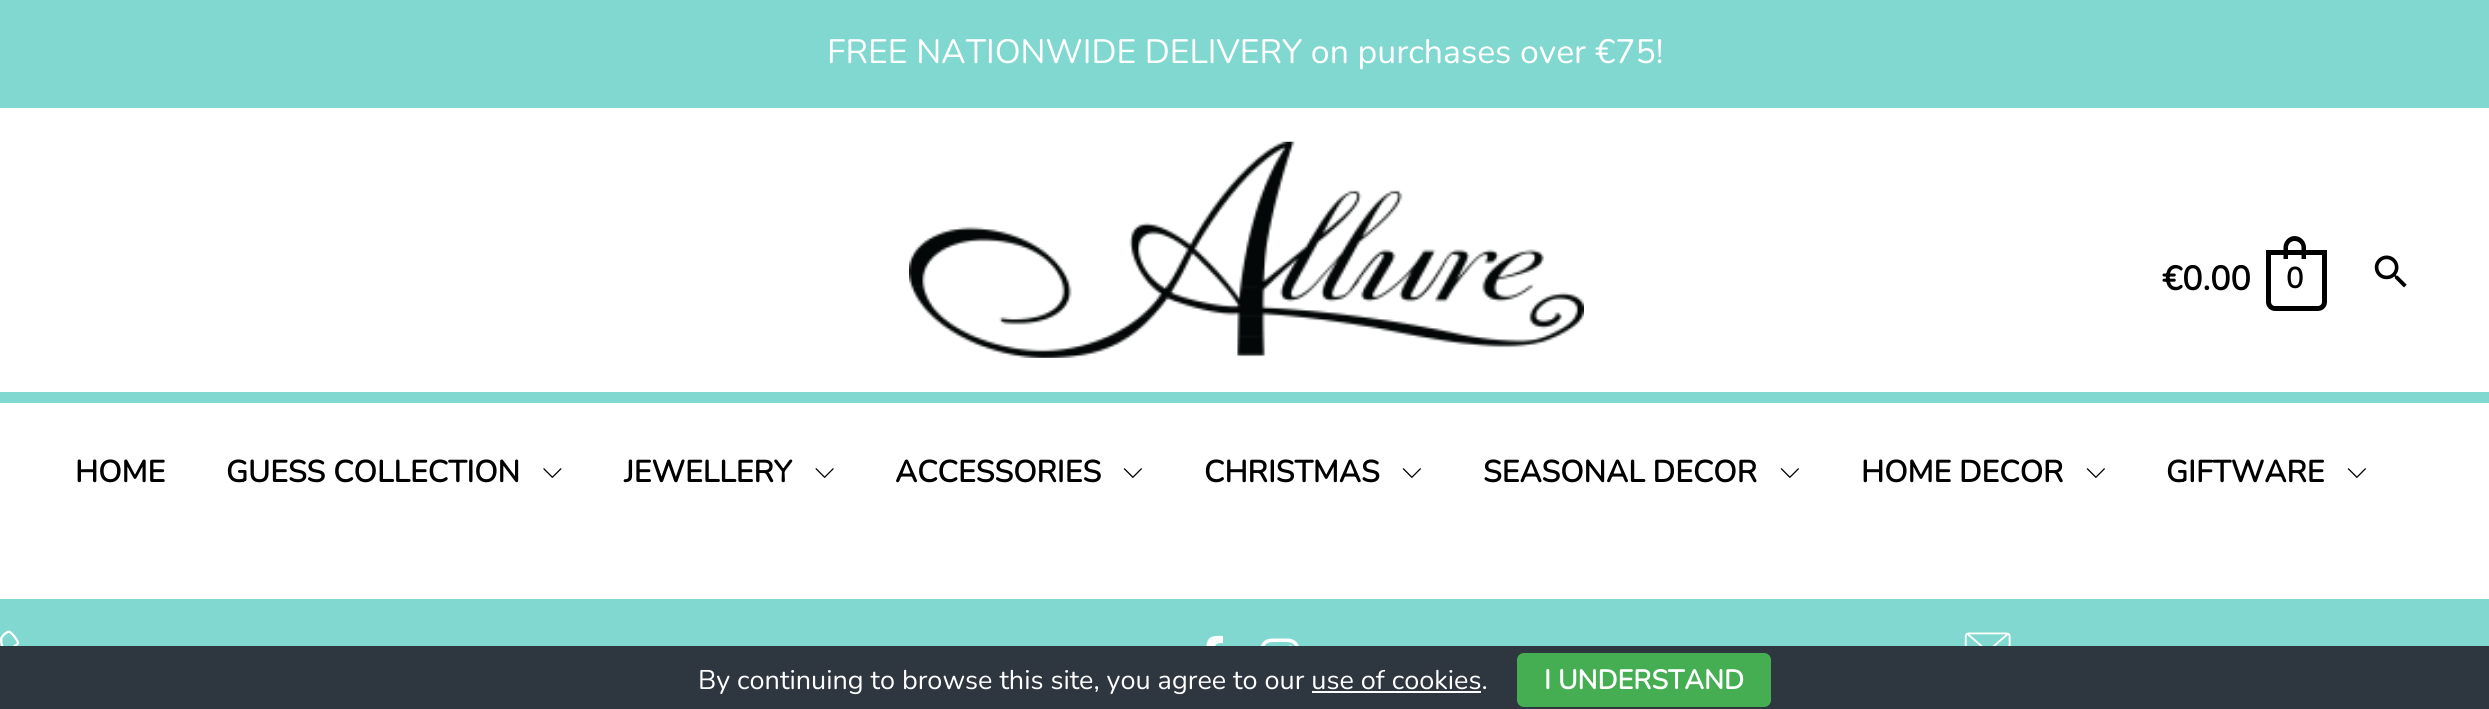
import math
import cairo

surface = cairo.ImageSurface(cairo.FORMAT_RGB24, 2489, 709)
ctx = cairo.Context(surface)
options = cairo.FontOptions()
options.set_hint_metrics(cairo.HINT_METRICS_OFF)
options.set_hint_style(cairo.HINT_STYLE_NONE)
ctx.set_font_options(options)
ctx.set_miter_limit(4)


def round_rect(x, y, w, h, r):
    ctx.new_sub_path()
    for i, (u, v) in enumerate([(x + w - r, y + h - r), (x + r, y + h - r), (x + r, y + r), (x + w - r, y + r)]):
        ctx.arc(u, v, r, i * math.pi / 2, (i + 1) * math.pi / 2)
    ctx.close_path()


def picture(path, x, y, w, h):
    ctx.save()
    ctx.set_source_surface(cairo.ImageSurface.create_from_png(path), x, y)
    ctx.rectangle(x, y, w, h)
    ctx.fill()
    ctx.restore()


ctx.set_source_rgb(1, 1, 1)
ctx.paint()
ctx.set_source_rgb(0.506, 0.847, 0.816)
ctx.rectangle(0, 0, 2489, 108)
ctx.fill()
ctx.select_font_face("Nunito ExtraLight")
ctx.set_font_size(33.75)
ctx.set_source_rgb(1, 1, 1)
ctx.move_to(827, 63)
ctx.show_text("FREE NATIONWIDE DELIVERY on purchases over €75!")
ctx.set_source_rgb(0.506, 0.847, 0.816)
ctx.rectangle(0, 392, 2489, 11)
ctx.fill()
picture("img1.png", 909, 141, 675, 217)
ctx.select_font_face("Nunito", cairo.FONT_SLANT_NORMAL, cairo.FONT_WEIGHT_BOLD)
ctx.set_source_rgb(0, 0, 0)
ctx.move_to(2162, 290)
ctx.show_text("€0.00")
ctx.new_path()
ctx.move_to(2268.5, 252.5)
ctx.line_to(2324.5, 252.5)
ctx.line_to(2324.5, 302)
ctx.curve_to(2324.5, 305.5, 2321.5, 308.5, 2318, 308.5)
ctx.line_to(2275, 308.5)
ctx.curve_to(2271.5, 308.5, 2268.5, 305.5, 2268.5, 302)
ctx.close_path()
ctx.set_line_width(5)
ctx.stroke()
ctx.set_fill_rule(cairo.FILL_RULE_EVEN_ODD)
ctx.new_path()
ctx.move_to(2294.5, 236)
ctx.curve_to(2301, 236, 2306, 241.5, 2306, 247.5)
ctx.line_to(2306, 259)
ctx.line_to(2283.5, 259)
ctx.line_to(2283.5, 247.5)
ctx.curve_to(2283.5, 241.5, 2288.5, 236, 2294.5, 236)
ctx.close_path()
ctx.move_to(2294.5, 241)
ctx.curve_to(2298.5, 241, 2301.5, 244, 2301.5, 247.5)
ctx.line_to(2301.5, 259)
ctx.line_to(2288, 259)
ctx.line_to(2288, 247.5)
ctx.curve_to(2288, 244, 2291, 241, 2294.5, 241)
ctx.close_path()
ctx.fill()
ctx.set_font_size(29)
ctx.move_to(2286, 288)
ctx.show_text("0")
picture("img2.png", 2374, 255, 33, 33)
ctx.set_font_size(30.4)
ctx.move_to(75, 482)
ctx.show_text("HOME")
ctx.move_to(226, 482)
ctx.show_text("GUESS COLLECTION")
picture("img3.png", 543, 468, 19, 10)
ctx.move_to(624, 482)
ctx.show_text("JEWELLERY")
picture("img4.png", 815, 468, 19, 10)
ctx.move_to(895, 482)
ctx.show_text("ACCESSORIES")
picture("img5.png", 1123, 468, 19, 10)
ctx.move_to(1204, 482)
ctx.show_text("CHRISTMAS")
picture("img5.png", 1402, 468, 19, 10)
ctx.move_to(1483, 482)
ctx.show_text("SEASONAL DECOR")
picture("img5.png", 1780, 468, 19, 10)
ctx.move_to(1861, 482)
ctx.show_text("HOME DECOR")
picture("img5.png", 2086, 468, 19, 10)
ctx.move_to(2166, 482)
ctx.show_text("GIFTWARE")
picture("img5.png", 2347, 468, 19, 10)
ctx.set_source_rgb(0.506, 0.847, 0.816)
ctx.rectangle(0, 599, 2489, 47)
ctx.fill()
picture("img6.png", 0, 630, 20, 16)
ctx.set_source_rgb(1, 1, 1)
ctx.set_fill_rule(cairo.FILL_RULE_WINDING)
ctx.new_path()
ctx.move_to(1222, 661)
ctx.line_to(1215, 661)
ctx.line_to(1215, 681)
ctx.line_to(1206, 681)
ctx.line_to(1206, 661)
ctx.line_to(1199, 661)
ctx.line_to(1199, 653)
ctx.line_to(1206, 653)
ctx.curve_to(1206, 638, 1209, 635, 1223, 636)
ctx.line_to(1223, 643)
ctx.curve_to(1214, 643, 1215, 645, 1215, 653)
ctx.line_to(1223, 653)
ctx.close_path()
ctx.fill()
picture("img7.png", 1261, 638, 38, 8)
picture("img8.png", 1964, 632, 47, 14)
ctx.set_source_rgb(0.18, 0.212, 0.247)
ctx.rectangle(0, 646, 2489, 63)
ctx.fill()
ctx.select_font_face("Nunito ExtraLight")
ctx.set_font_size(27)
ctx.set_source_rgb(1, 1, 1)
ctx.move_to(698, 689)
ctx.show_text("By continuing to browse this site, you agree to our use of cookies.")
ctx.set_source_rgb(0.271, 0.682, 0.322)
round_rect(1517, 653, 254, 54, 7)
ctx.fill()
ctx.select_font_face("Nunito", cairo.FONT_SLANT_NORMAL, cairo.FONT_WEIGHT_BOLD)
ctx.set_source_rgb(1, 1, 1)
ctx.move_to(1544, 689)
ctx.show_text("I UNDERSTAND")
ctx.rectangle(1312, 691, 169, 2)
ctx.fill()
surface.write_to_png("page.png")
